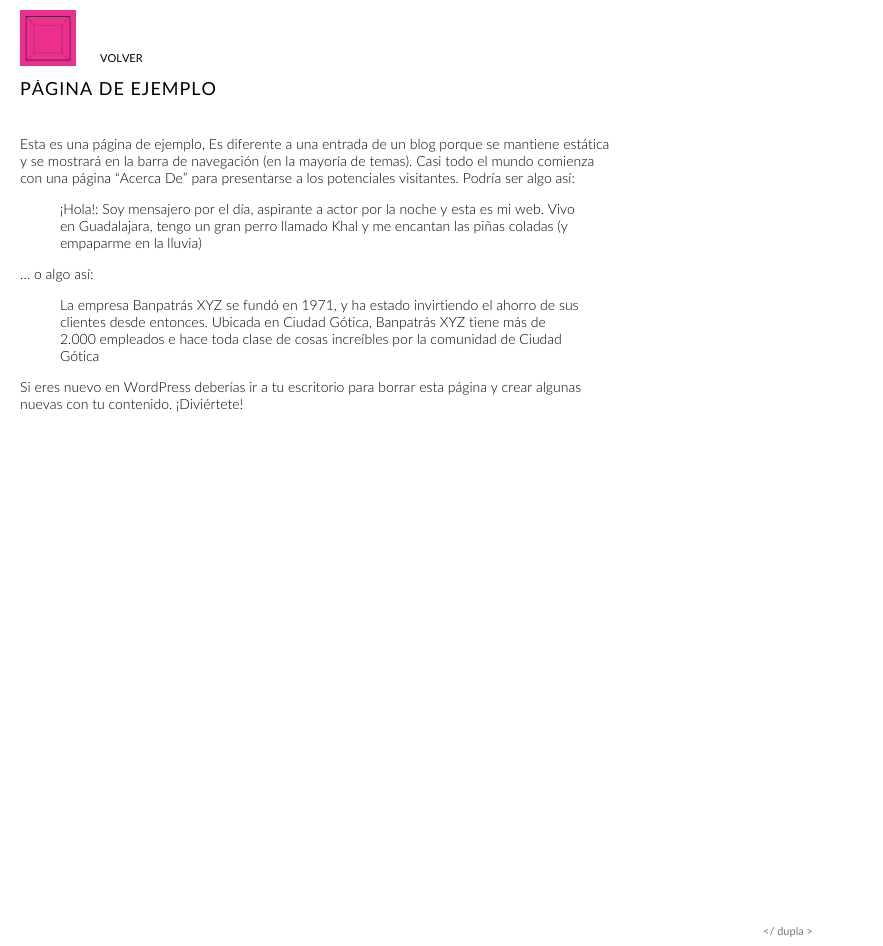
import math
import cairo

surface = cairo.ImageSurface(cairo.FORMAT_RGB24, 883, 946)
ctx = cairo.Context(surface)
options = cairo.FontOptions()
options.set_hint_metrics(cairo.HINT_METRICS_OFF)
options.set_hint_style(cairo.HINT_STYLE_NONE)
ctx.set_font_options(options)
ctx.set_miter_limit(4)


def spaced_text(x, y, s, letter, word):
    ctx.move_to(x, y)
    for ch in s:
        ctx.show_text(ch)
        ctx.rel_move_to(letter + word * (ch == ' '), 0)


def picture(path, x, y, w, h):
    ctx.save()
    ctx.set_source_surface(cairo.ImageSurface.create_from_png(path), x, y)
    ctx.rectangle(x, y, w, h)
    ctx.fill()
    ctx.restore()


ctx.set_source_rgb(1, 1, 1)
ctx.paint()
ctx.select_font_face("Lato")
ctx.set_font_size(18)
ctx.set_source_rgb(0, 0, 0)
spaced_text(20, 95, "PÁGINA DE EJEMPLO", 1, 0)
ctx.set_source_rgb(1, 1, 1)
ctx.rectangle(37, 78, 5, 2)
ctx.fill()
picture("img1.png", 20, 10, 56, 56)
ctx.set_font_size(11)
ctx.set_source_rgb(0, 0, 0)
ctx.move_to(100, 62)
ctx.show_text("VOLVER")
ctx.select_font_face("Lato Light")
ctx.set_font_size(14)
ctx.move_to(20, 149)
ctx.show_text("Esta es una página de ejemplo, Es diferente a una entrada de un blog porque se mantiene estática")
ctx.move_to(20, 166)
ctx.show_text("y se mostrará en la barra de navegación (en la mayoría de temas). Casi todo el mundo comienza")
ctx.move_to(20, 183)
ctx.show_text("con una página “Acerca De” para presentarse a los potenciales visitantes. Podría ser algo así:")
ctx.move_to(60, 214)
ctx.show_text("¡Hola!: Soy mensajero por el día, aspirante a actor por la noche y esta es mi web. Vivo")
ctx.move_to(60, 231)
ctx.show_text("en Guadalajara, tengo un gran perro llamado Khal y me encantan las piñas coladas (y")
ctx.move_to(60, 248)
ctx.show_text("empaparme en la lluvia)")
ctx.move_to(20, 279)
ctx.show_text("… o algo así:")
ctx.move_to(60, 310)
ctx.show_text("La empresa Banpatrás XYZ se fundó en 1971, y ha estado invirtiendo el ahorro de sus")
ctx.move_to(60, 327)
ctx.show_text("clientes desde entonces. Ubicada en Ciudad Gótica, Banpatrás XYZ tiene más de")
ctx.move_to(60, 344)
ctx.show_text("2.000 empleados e hace toda clase de cosas increíbles por la comunidad de Ciudad")
ctx.move_to(60, 361)
ctx.show_text("Gótica")
ctx.move_to(20, 392)
ctx.show_text("Si eres nuevo en WordPress deberías ir a tu escritorio para borrar esta página y crear algunas")
ctx.move_to(20, 409)
ctx.show_text("nuevas con tu contenido. ¡Diviértete!")
ctx.select_font_face("Lato")
ctx.set_font_size(11)
ctx.set_source_rgb(0.467, 0.467, 0.467)
ctx.move_to(763, 935)
ctx.show_text("</ dupla >")
surface.write_to_png("page.png")
